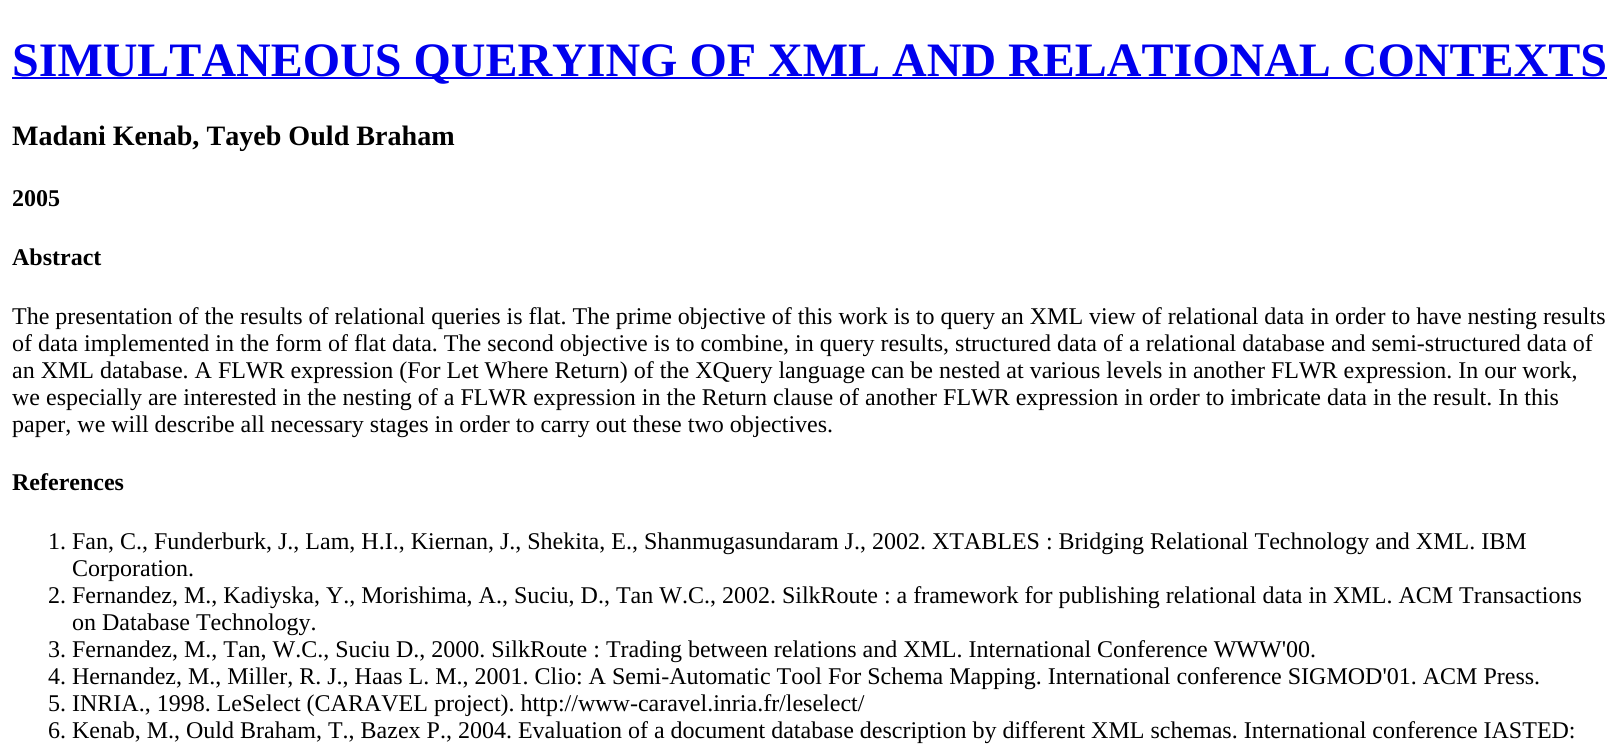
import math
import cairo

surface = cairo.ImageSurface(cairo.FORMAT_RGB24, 1621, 753)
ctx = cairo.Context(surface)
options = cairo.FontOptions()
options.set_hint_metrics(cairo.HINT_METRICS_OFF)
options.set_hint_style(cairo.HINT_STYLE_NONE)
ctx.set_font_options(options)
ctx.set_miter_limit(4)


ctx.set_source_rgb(1, 1, 1)
ctx.paint()
ctx.set_source_rgb(0, 0, 0.933)
ctx.rectangle(12, 77, 1595, 2)
ctx.fill()
ctx.select_font_face("Liberation Serif", cairo.FONT_SLANT_NORMAL, cairo.FONT_WEIGHT_BOLD)
ctx.set_font_size(48)
ctx.move_to(12, 76)
ctx.show_text("SIMULTANEOUS QUERYING OF XML AND RELATIONAL CONTEXTS")
ctx.set_font_size(28.1)
ctx.set_source_rgb(0, 0, 0)
ctx.move_to(12, 145)
ctx.show_text("Madani Kenab, Tayeb Ould Braham")
ctx.set_font_size(24)
ctx.move_to(12, 206)
ctx.show_text("2005")
ctx.move_to(12, 265)
ctx.show_text("Abstract")
ctx.select_font_face("Liberation Serif")
ctx.move_to(12, 324)
ctx.show_text("The presentation of the results of relational queries is flat. The prime objective of this work is to query an XML view of relational data in order to have nesting results")
ctx.move_to(12, 351)
ctx.show_text("of data implemented in the form of flat data. The second objective is to combine, in query results, structured data of a relational database and semi-structured data of")
ctx.move_to(12, 378)
ctx.show_text("an XML database. A FLWR expression (For Let Where Return) of the XQuery language can be nested at various levels in another FLWR expression. In our work,")
ctx.move_to(12, 405)
ctx.show_text("we especially are interested in the nesting of a FLWR expression in the Return clause of another FLWR expression in order to imbricate data in the result. In this")
ctx.move_to(12, 432)
ctx.show_text("paper, we will describe all necessary stages in order to carry out these two objectives.")
ctx.select_font_face("Liberation Serif", cairo.FONT_SLANT_NORMAL, cairo.FONT_WEIGHT_BOLD)
ctx.move_to(12, 490)
ctx.show_text("References")
ctx.select_font_face("Liberation Serif")
ctx.move_to(48, 549)
ctx.show_text("1. Fan, C., Funderburk, J., Lam, H.I., Kiernan, J., Shekita, E., Shanmugasundaram J., 2002. XTABLES : Bridging Relational Technology and XML. IBM")
ctx.move_to(72, 576)
ctx.show_text("Corporation.")
ctx.move_to(48, 603)
ctx.show_text("2. Fernandez, M., Kadiyska, Y., Morishima, A., Suciu, D., Tan W.C., 2002. SilkRoute : a framework for publishing relational data in XML. ACM Transactions")
ctx.move_to(72, 630)
ctx.show_text("on Database Technology.")
ctx.move_to(48, 657)
ctx.show_text("3. Fernandez, M., Tan, W.C., Suciu D., 2000. SilkRoute : Trading between relations and XML. International Conference WWW'00.")
ctx.move_to(48, 684)
ctx.show_text("4. Hernandez, M., Miller, R. J., Haas L. M., 2001. Clio: A Semi-Automatic Tool For Schema Mapping. International conference SIGMOD'01. ACM Press.")
ctx.move_to(48, 711)
ctx.show_text("5. INRIA., 1998. LeSelect (CARAVEL project). http://www-caravel.inria.fr/leselect/")
ctx.move_to(48, 738)
ctx.show_text("6. Kenab, M., Ould Braham, T., Bazex P., 2004. Evaluation of a document database description by different XML schemas. International conference IASTED:")
surface.write_to_png("page.png")
